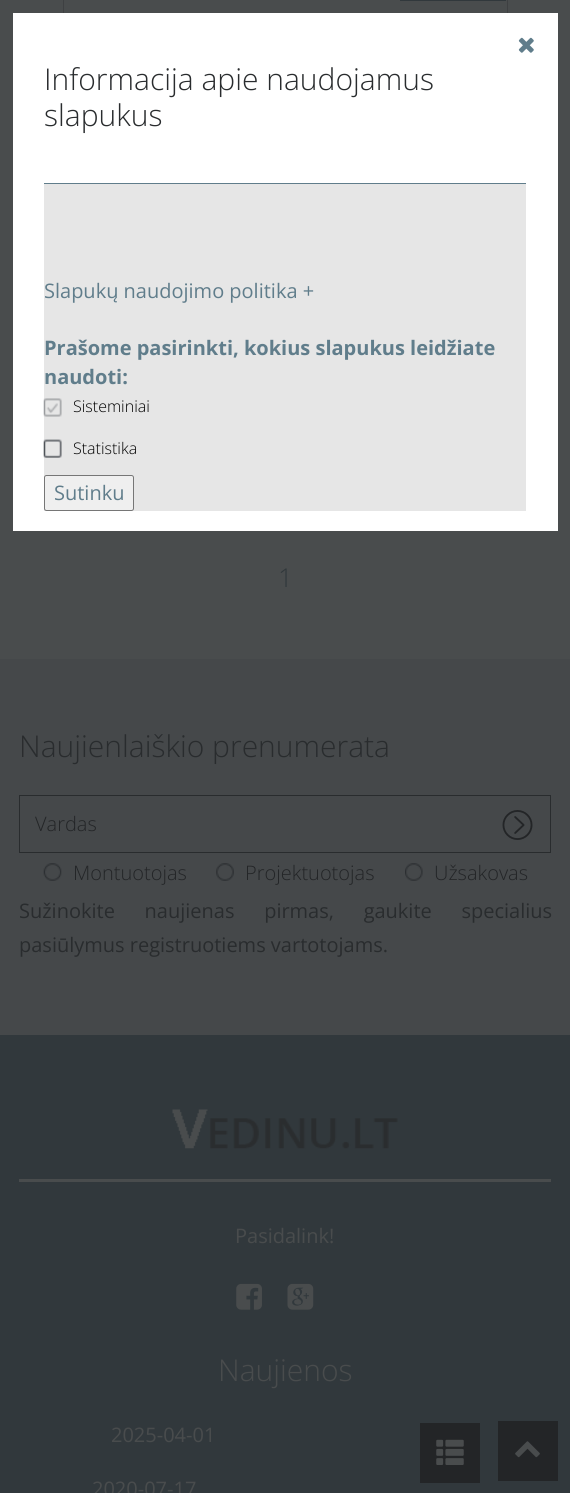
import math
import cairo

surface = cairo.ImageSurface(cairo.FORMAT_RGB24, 570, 1493)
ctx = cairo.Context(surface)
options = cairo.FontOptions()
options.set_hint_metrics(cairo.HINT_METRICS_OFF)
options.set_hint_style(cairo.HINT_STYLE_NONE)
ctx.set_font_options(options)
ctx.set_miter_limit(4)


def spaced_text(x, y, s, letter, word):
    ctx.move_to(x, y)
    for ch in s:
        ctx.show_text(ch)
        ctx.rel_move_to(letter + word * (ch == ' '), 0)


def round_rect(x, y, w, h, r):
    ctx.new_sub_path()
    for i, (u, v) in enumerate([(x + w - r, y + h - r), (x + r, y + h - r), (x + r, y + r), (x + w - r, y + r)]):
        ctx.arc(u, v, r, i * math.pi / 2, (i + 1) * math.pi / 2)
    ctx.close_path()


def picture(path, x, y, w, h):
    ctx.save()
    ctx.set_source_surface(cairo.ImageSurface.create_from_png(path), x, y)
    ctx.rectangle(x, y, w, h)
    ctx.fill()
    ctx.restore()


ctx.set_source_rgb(0.286, 0.298, 0.302)
ctx.paint()
ctx.rectangle(63.5, -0.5, 444, 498)
ctx.set_source_rgb(0.243, 0.251, 0.259)
ctx.set_line_width(1)
ctx.stroke()
ctx.set_source_rgb(1, 1, 1)
ctx.rectangle(13, 13, 545, 518)
ctx.fill()
ctx.set_source_rgb(0.376, 0.49, 0.545)
ctx.rectangle(44, 183, 482, 1)
ctx.fill()
picture("img1.png", 518, 37, 16, 16)
ctx.select_font_face("Open Sans Light")
ctx.set_font_size(30)
ctx.set_source_rgb(0.161, 0.173, 0.18)
ctx.move_to(44, 90)
ctx.show_text("Informacija apie naudojamus")
ctx.move_to(44, 126)
ctx.show_text("slapukus")
ctx.set_source_rgb(0.902, 0.902, 0.902)
ctx.rectangle(44, 184, 482, 327)
ctx.fill()
ctx.select_font_face("Open Sans")
ctx.set_font_size(20)
ctx.set_source_rgb(0.376, 0.49, 0.545)
ctx.move_to(44, 298)
ctx.show_text("Slapukų naudojimo politika +")
ctx.select_font_face("Open Sans", cairo.FONT_SLANT_NORMAL, cairo.FONT_WEIGHT_BOLD)
ctx.move_to(44, 355)
ctx.show_text("Prašome pasirinkti, kokius slapukus leidžiate")
ctx.move_to(44, 384)
ctx.show_text("naudoti:")
picture("img2.png", 43, 398, 19, 19)
ctx.select_font_face("Open Sans Light")
ctx.set_font_size(16)
ctx.set_source_rgb(0, 0, 0)
ctx.move_to(73, 412)
ctx.show_text("Sisteminiai")
picture("img3.png", 43, 439, 19, 19)
ctx.move_to(73, 454)
ctx.show_text("Statistika")
ctx.set_source_rgb(0.937, 0.937, 0.937)
round_rect(44.5, 475.5, 89, 35, 2)
ctx.fill_preserve()
ctx.set_source_rgb(0.463, 0.463, 0.463)
ctx.stroke()
ctx.select_font_face("Open Sans")
ctx.set_font_size(20)
ctx.set_source_rgb(0.376, 0.49, 0.545)
ctx.move_to(54, 500)
ctx.show_text("Sutinku")
ctx.set_source_rgb(0.192, 0.22, 0.235)
ctx.rectangle(400, 0, 106, 1)
ctx.fill()
ctx.select_font_face("Open Sans Light")
ctx.set_font_size(26)
ctx.move_to(278, 587)
ctx.show_text("1")
ctx.set_source_rgb(0.271, 0.282, 0.29)
ctx.rectangle(0, 659, 570, 376)
ctx.fill()
ctx.set_font_size(30)
ctx.set_source_rgb(0.161, 0.173, 0.18)
ctx.move_to(19, 757)
ctx.show_text("Naujienlaiškio prenumerata")
ctx.rectangle(19.5, 795.5, 531, 57)
ctx.stroke()
ctx.set_font_size(20)
ctx.set_source_rgb(0.137, 0.145, 0.153)
ctx.move_to(35, 831)
ctx.show_text("Vardas")
picture("img4.png", 502, 810, 31, 30)
picture("img5.png", 43, 863, 19, 18)
ctx.move_to(73, 880)
ctx.show_text("Montuotojas")
picture("img6.png", 216, 863, 18, 18)
ctx.move_to(245, 880)
ctx.show_text("Projektuotojas")
picture("img7.png", 405, 863, 18, 18)
ctx.move_to(434, 880)
ctx.show_text("Užsakovas")
ctx.select_font_face("Open Sans")
ctx.set_source_rgb(0.161, 0.173, 0.18)
spaced_text(19, 918, "Sužinokite naujienas pirmas, gaukite specialius", 0, 24.5)
ctx.move_to(19, 952)
ctx.show_text("pasiūlymus registruotiems vartotojams.")
ctx.set_source_rgb(0.192, 0.22, 0.235)
ctx.rectangle(0, 1035, 570, 458)
ctx.fill()
ctx.set_source_rgb(0.286, 0.298, 0.302)
ctx.rectangle(19, 1179, 532, 3)
ctx.fill()
picture("img8.png", 172, 1109, 226, 40)
ctx.move_to(235, 1243)
ctx.show_text("Pasidalink!")
picture("img9.png", 236, 1283, 26, 27)
picture("img10.png", 287, 1283, 27, 27)
ctx.select_font_face("Open Sans Light")
ctx.set_font_size(30)
ctx.move_to(218, 1381)
ctx.show_text("Naujienos")
ctx.select_font_face("Open Sans")
ctx.set_font_size(20)
ctx.move_to(111, 1442)
ctx.show_text("2025-04-01")
ctx.move_to(92, 1496)
ctx.show_text("2020-07-17")
ctx.set_source_rgb(0.137, 0.145, 0.153)
ctx.rectangle(420, 1423, 60, 60)
ctx.fill()
picture("img11.png", 436, 1439, 28, 26)
ctx.rectangle(498, 1421, 60, 60)
ctx.fill()
picture("img12.png", 515, 1441, 25, 17)
surface.write_to_png("page.png")
